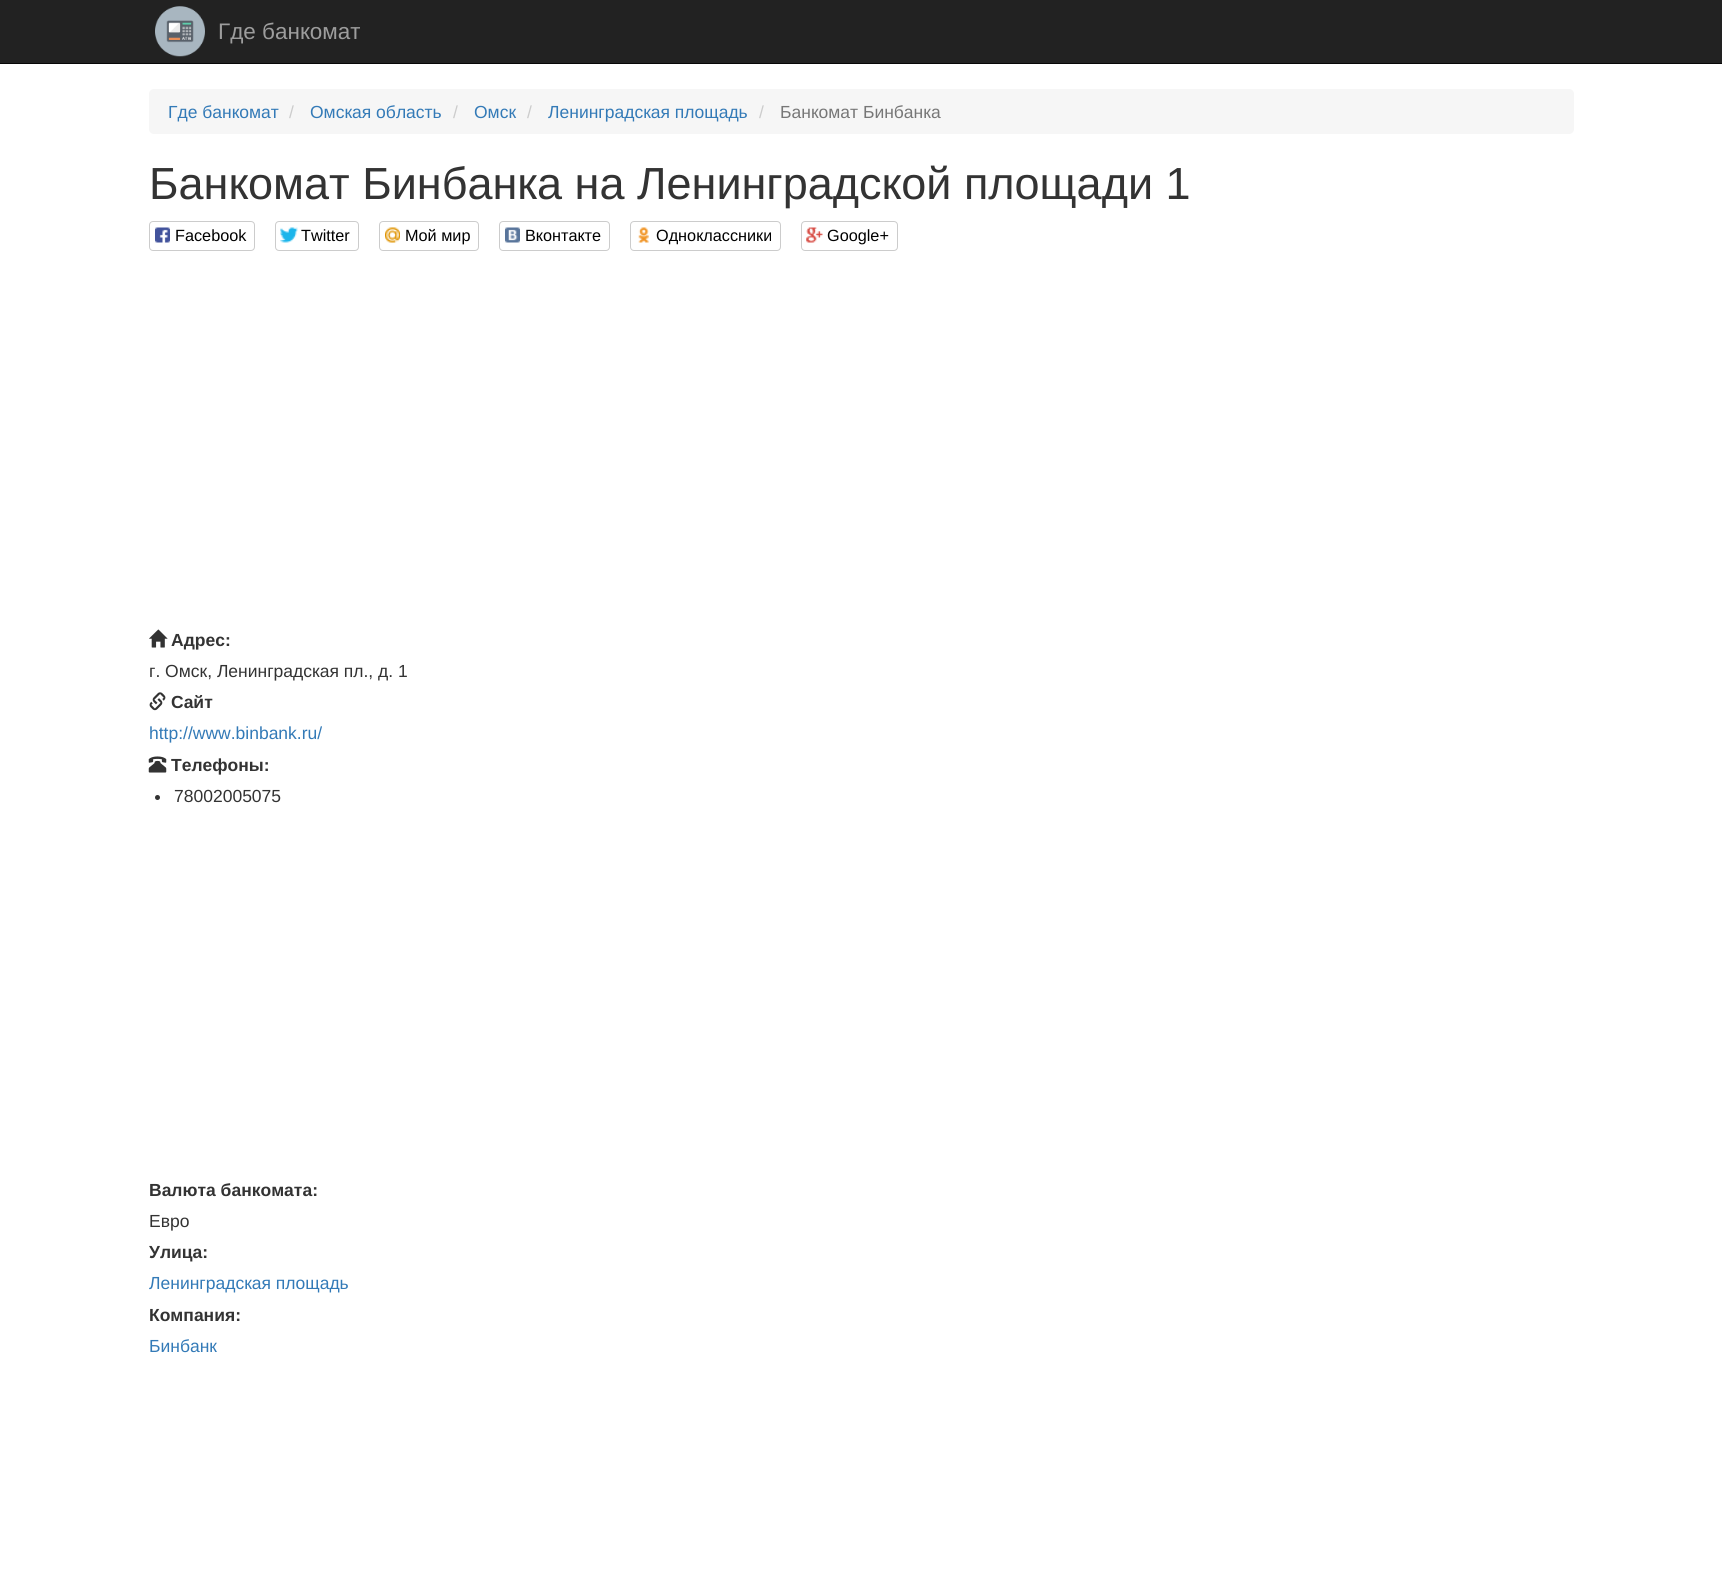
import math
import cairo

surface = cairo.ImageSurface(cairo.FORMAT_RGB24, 1722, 1592)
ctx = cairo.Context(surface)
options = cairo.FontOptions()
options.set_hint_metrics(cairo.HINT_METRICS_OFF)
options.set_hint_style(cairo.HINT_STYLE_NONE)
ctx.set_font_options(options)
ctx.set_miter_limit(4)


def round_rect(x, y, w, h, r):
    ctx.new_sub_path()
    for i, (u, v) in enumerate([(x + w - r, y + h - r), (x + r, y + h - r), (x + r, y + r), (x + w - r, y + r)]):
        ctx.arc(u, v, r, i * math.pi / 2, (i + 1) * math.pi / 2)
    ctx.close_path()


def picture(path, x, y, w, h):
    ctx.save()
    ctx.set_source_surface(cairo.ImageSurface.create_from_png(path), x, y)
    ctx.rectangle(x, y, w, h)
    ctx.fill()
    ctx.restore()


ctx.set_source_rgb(1, 1, 1)
ctx.paint()
ctx.set_source_rgb(0.133, 0.133, 0.133)
ctx.rectangle(0, 0, 1722, 63)
ctx.fill()
ctx.set_source_rgb(0.031, 0.031, 0.031)
ctx.rectangle(0, 63, 1722, 1)
ctx.fill()
picture("img1.png", 155, 6, 50, 51)
ctx.select_font_face("Liberation Sans")
ctx.set_font_size(22.5)
ctx.set_source_rgb(0.616, 0.616, 0.616)
ctx.move_to(218, 39)
ctx.show_text("Где банкомат")
ctx.set_source_rgb(0.961, 0.961, 0.961)
round_rect(149, 89, 1425, 45, 5)
ctx.fill()
ctx.set_font_size(17.5)
ctx.set_source_rgb(0.2, 0.478, 0.718)
ctx.move_to(168, 118)
ctx.show_text("Где банкомат")
ctx.set_source_rgb(0.8, 0.8, 0.8)
ctx.move_to(289, 118)
ctx.show_text("/")
ctx.set_source_rgb(0.2, 0.478, 0.718)
ctx.move_to(310, 118)
ctx.show_text("Омская область")
ctx.set_source_rgb(0.8, 0.8, 0.8)
ctx.move_to(453, 118)
ctx.show_text("/")
ctx.set_source_rgb(0.2, 0.478, 0.718)
ctx.move_to(474, 118)
ctx.show_text("Омск")
ctx.set_source_rgb(0.8, 0.8, 0.8)
ctx.move_to(527, 118)
ctx.show_text("/")
ctx.set_source_rgb(0.2, 0.478, 0.718)
ctx.move_to(548, 118)
ctx.show_text("Ленинградская площадь")
ctx.set_source_rgb(0.8, 0.8, 0.8)
ctx.move_to(759, 118)
ctx.show_text("/")
ctx.set_source_rgb(0.467, 0.467, 0.467)
ctx.move_to(780, 118)
ctx.show_text("Банкомат Бинбанка")
ctx.set_font_size(45)
ctx.set_source_rgb(0.2, 0.2, 0.2)
ctx.move_to(149, 199)
ctx.show_text("Банкомат Бинбанка на Ленинградской площади 1")
round_rect(149.5, 221.5, 105, 29, 3.5)
ctx.set_source_rgb(0.8, 0.8, 0.8)
ctx.set_line_width(1)
ctx.stroke()
picture("img2.png", 155, 227, 15, 16)
ctx.set_font_size(16.25)
ctx.set_source_rgb(0, 0, 0)
ctx.move_to(175, 241)
ctx.show_text("Facebook")
round_rect(275.5, 221.5, 83, 29, 3.5)
ctx.set_source_rgb(0.8, 0.8, 0.8)
ctx.stroke()
picture("img3.png", 280, 227, 18, 16)
ctx.set_source_rgb(0, 0, 0)
ctx.move_to(301, 241)
ctx.show_text("Twitter")
round_rect(379.5, 221.5, 99, 29, 3.5)
ctx.set_source_rgb(0.8, 0.8, 0.8)
ctx.stroke()
picture("img4.png", 385, 227, 15, 16)
ctx.set_source_rgb(0, 0, 0)
ctx.move_to(405, 241)
ctx.show_text("Мой мир")
round_rect(499.5, 221.5, 110, 29, 3.5)
ctx.set_source_rgb(0.8, 0.8, 0.8)
ctx.stroke()
picture("img5.png", 505, 227, 15, 16)
ctx.set_source_rgb(0, 0, 0)
ctx.move_to(525, 241)
ctx.show_text("Вконтакте")
round_rect(630.5, 221.5, 150, 29, 3.5)
ctx.set_source_rgb(0.8, 0.8, 0.8)
ctx.stroke()
picture("img6.png", 638, 227, 11, 16)
ctx.set_source_rgb(0, 0, 0)
ctx.move_to(656, 241)
ctx.show_text("Одноклассники")
round_rect(801.5, 221.5, 96, 29, 3.5)
ctx.set_source_rgb(0.8, 0.8, 0.8)
ctx.stroke()
picture("img7.png", 806, 227, 17, 16)
ctx.set_source_rgb(0, 0, 0)
ctx.move_to(827, 241)
ctx.show_text("Google+")
picture("img8.png", 149, 629, 19, 19)
ctx.select_font_face("Liberation Sans", cairo.FONT_SLANT_NORMAL, cairo.FONT_WEIGHT_BOLD)
ctx.set_font_size(17.5)
ctx.set_source_rgb(0.2, 0.2, 0.2)
ctx.move_to(171, 646)
ctx.show_text("Адрес:")
ctx.select_font_face("Liberation Sans")
ctx.move_to(149, 677)
ctx.show_text("г. Омск, Ленинградская пл., д. 1")
picture("img9.png", 149, 692, 17, 19)
ctx.select_font_face("Liberation Sans", cairo.FONT_SLANT_NORMAL, cairo.FONT_WEIGHT_BOLD)
ctx.move_to(171, 708)
ctx.show_text("Сайт")
ctx.select_font_face("Liberation Sans")
ctx.set_source_rgb(0.2, 0.478, 0.718)
ctx.move_to(149, 739)
ctx.show_text("http://www.binbank.ru/")
picture("img10.png", 148, 756, 19, 17)
ctx.select_font_face("Liberation Sans", cairo.FONT_SLANT_NORMAL, cairo.FONT_WEIGHT_BOLD)
ctx.set_source_rgb(0.2, 0.2, 0.2)
ctx.move_to(171, 771)
ctx.show_text("Телефоны:")
ctx.new_path()
ctx.arc(157.5, 797.5, 2.5, 0, 2 * math.pi)
ctx.fill()
ctx.select_font_face("Liberation Sans")
ctx.move_to(174, 802)
ctx.show_text("78002005075")
ctx.select_font_face("Liberation Sans", cairo.FONT_SLANT_NORMAL, cairo.FONT_WEIGHT_BOLD)
ctx.move_to(149, 1196)
ctx.show_text("Валюта банкомата:")
ctx.select_font_face("Liberation Sans")
ctx.move_to(149, 1227)
ctx.show_text("Евро")
ctx.select_font_face("Liberation Sans", cairo.FONT_SLANT_NORMAL, cairo.FONT_WEIGHT_BOLD)
ctx.move_to(149, 1258)
ctx.show_text("Улица:")
ctx.select_font_face("Liberation Sans")
ctx.set_source_rgb(0.2, 0.478, 0.718)
ctx.move_to(149, 1289)
ctx.show_text("Ленинградская площадь")
ctx.select_font_face("Liberation Sans", cairo.FONT_SLANT_NORMAL, cairo.FONT_WEIGHT_BOLD)
ctx.set_source_rgb(0.2, 0.2, 0.2)
ctx.move_to(149, 1321)
ctx.show_text("Компания:")
ctx.select_font_face("Liberation Sans")
ctx.set_source_rgb(0.2, 0.478, 0.718)
ctx.move_to(149, 1352)
ctx.show_text("Бинбанк")
surface.write_to_png("page.png")
